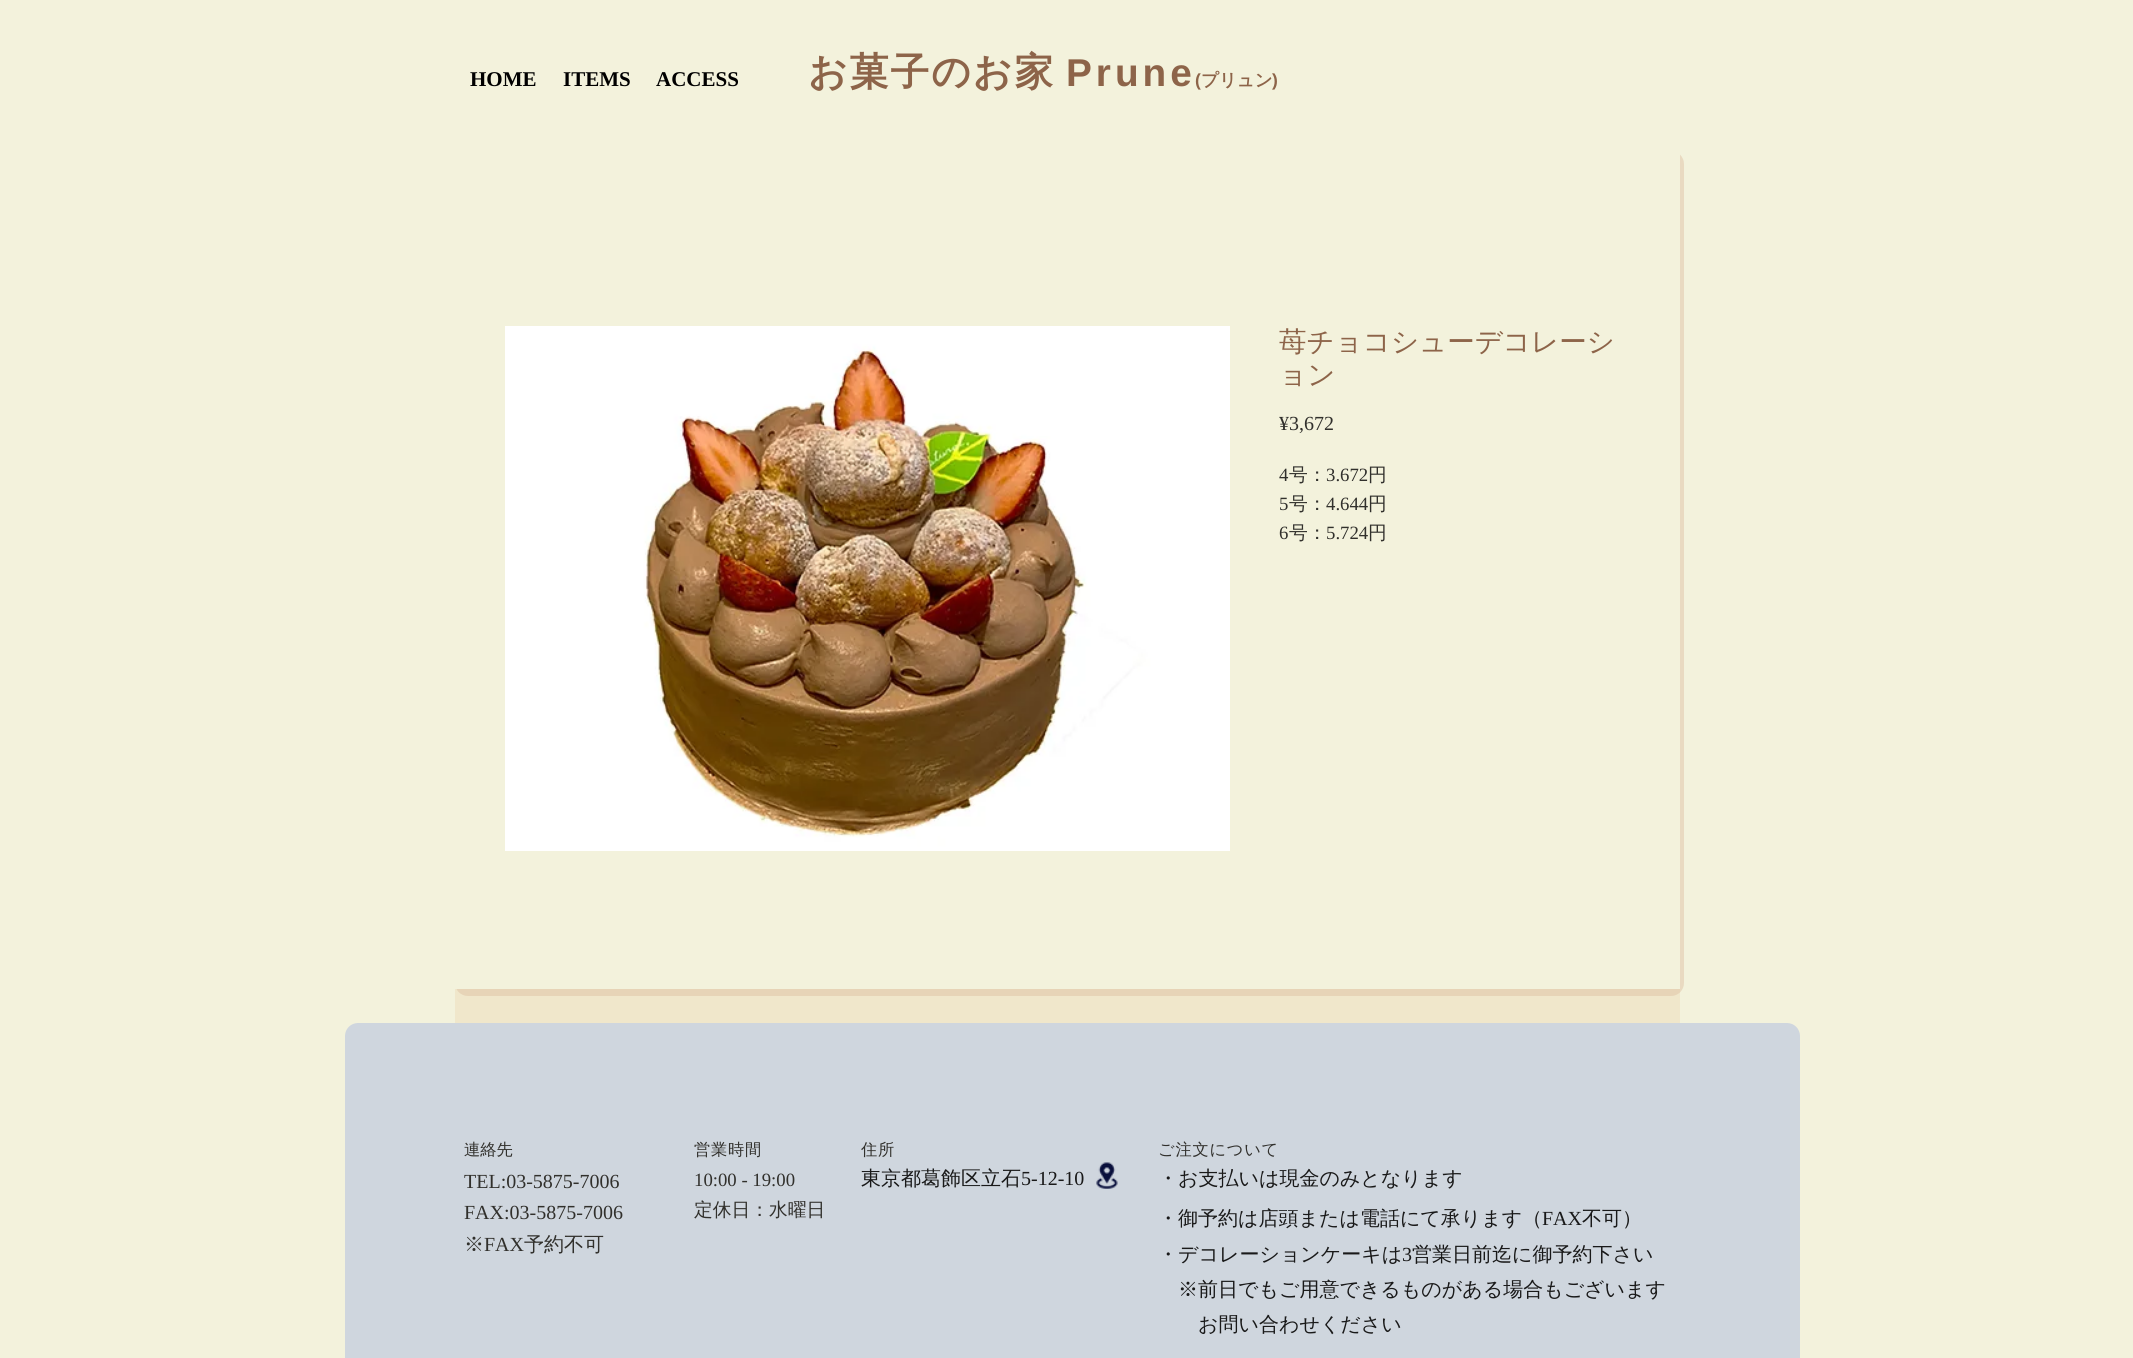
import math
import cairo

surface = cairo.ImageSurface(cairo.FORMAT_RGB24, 2133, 1358)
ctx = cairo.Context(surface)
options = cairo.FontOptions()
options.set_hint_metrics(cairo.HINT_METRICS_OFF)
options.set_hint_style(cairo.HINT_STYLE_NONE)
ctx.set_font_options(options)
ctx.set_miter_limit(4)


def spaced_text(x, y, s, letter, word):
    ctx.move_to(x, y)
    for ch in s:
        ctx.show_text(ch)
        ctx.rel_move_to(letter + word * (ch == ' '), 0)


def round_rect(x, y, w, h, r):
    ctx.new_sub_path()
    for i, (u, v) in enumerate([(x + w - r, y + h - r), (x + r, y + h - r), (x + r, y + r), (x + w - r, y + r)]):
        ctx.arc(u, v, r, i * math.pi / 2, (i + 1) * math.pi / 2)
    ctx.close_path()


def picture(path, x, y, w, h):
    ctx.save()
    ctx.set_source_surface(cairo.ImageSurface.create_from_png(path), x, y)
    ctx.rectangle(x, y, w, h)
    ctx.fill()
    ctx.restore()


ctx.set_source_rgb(0.953, 0.949, 0.863)
ctx.paint()
ctx.select_font_face("Liberation Serif", cairo.FONT_SLANT_NORMAL, cairo.FONT_WEIGHT_BOLD)
ctx.set_font_size(21)
ctx.set_source_rgb(0, 0, 0)
ctx.move_to(470, 86)
ctx.show_text("HOME")
ctx.move_to(563, 86)
ctx.show_text("ITEMS")
ctx.move_to(656, 86)
ctx.show_text("ACCESS")
ctx.select_font_face("WenQuanYi Zen Hei", cairo.FONT_SLANT_NORMAL, cairo.FONT_WEIGHT_BOLD)
ctx.set_font_size(38.75)
ctx.set_source_rgb(0.553, 0.392, 0.286)
spaced_text(808, 85, "お菓子のお家", 2, 0)
ctx.select_font_face("Liberation Sans", cairo.FONT_SLANT_NORMAL, cairo.FONT_WEIGHT_BOLD)
spaced_text(1066, 86, "Prune", 4, 0)
ctx.set_font_size(17.5)
ctx.move_to(1195, 86)
ctx.show_text("(")
ctx.select_font_face("WenQuanYi Zen Hei", cairo.FONT_SLANT_NORMAL, cairo.FONT_WEIGHT_BOLD)
ctx.move_to(1201, 86)
ctx.show_text("プリュン")
ctx.select_font_face("Liberation Sans", cairo.FONT_SLANT_NORMAL, cairo.FONT_WEIGHT_BOLD)
ctx.move_to(1272, 86)
ctx.show_text(")")
ctx.set_source_rgb(0.941, 0.906, 0.796)
ctx.rectangle(455, 989, 1225, 34)
ctx.fill()
ctx.set_source_rgba(0.859, 0.722, 0.604, 0.4)
round_rect(455, 151, 1229, 845, 13)
ctx.fill()
ctx.set_source_rgb(0.953, 0.949, 0.863)
ctx.rectangle(455, 151, 1225, 838)
ctx.fill()
picture("img1.png", 505, 326, 725, 525)
ctx.select_font_face("WenQuanYi Zen Hei Medium")
ctx.set_font_size(27.5)
ctx.set_source_rgb(0.553, 0.392, 0.286)
ctx.move_to(1279, 351)
ctx.show_text("苺チョコシューデコレーシ")
ctx.move_to(1279, 384)
ctx.show_text("ョン")
ctx.select_font_face("Liberation Serif")
ctx.set_font_size(20)
ctx.set_source_rgb(0.192, 0.188, 0.173)
ctx.move_to(1279, 430)
ctx.show_text("¥3,672")
ctx.set_font_size(18.75)
ctx.move_to(1279, 481)
ctx.show_text("4")
ctx.select_font_face("WenQuanYi Zen Hei Medium")
ctx.move_to(1289, 481)
ctx.show_text("号：")
ctx.select_font_face("Liberation Serif")
ctx.move_to(1326, 481)
ctx.show_text("3.672")
ctx.select_font_face("WenQuanYi Zen Hei Medium")
ctx.move_to(1368, 481)
ctx.show_text("円")
ctx.select_font_face("Liberation Serif")
ctx.move_to(1279, 510)
ctx.show_text("5")
ctx.select_font_face("WenQuanYi Zen Hei Medium")
ctx.move_to(1289, 510)
ctx.show_text("号：")
ctx.select_font_face("Liberation Serif")
ctx.move_to(1326, 510)
ctx.show_text("4.644")
ctx.select_font_face("WenQuanYi Zen Hei Medium")
ctx.move_to(1368, 510)
ctx.show_text("円")
ctx.select_font_face("Liberation Serif")
ctx.move_to(1279, 539)
ctx.show_text("6")
ctx.select_font_face("WenQuanYi Zen Hei Medium")
ctx.move_to(1289, 539)
ctx.show_text("号：")
ctx.select_font_face("Liberation Serif")
ctx.move_to(1326, 539)
ctx.show_text("5.724")
ctx.select_font_face("WenQuanYi Zen Hei Medium")
ctx.move_to(1368, 539)
ctx.show_text("円")
ctx.set_source_rgb(0.812, 0.839, 0.871)
round_rect(345, 1023, 1455, 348, 13)
ctx.fill()
ctx.set_font_size(16.25)
ctx.set_source_rgb(0.192, 0.188, 0.173)
ctx.move_to(464, 1155)
ctx.show_text("連絡先")
spaced_text(694, 1155, "営業時間", 0.75, 0)
spaced_text(861, 1155, "住所", 0.75, 0)
spaced_text(1158, 1155, "ご注文について", 0.75, 0)
ctx.select_font_face("Liberation Serif")
ctx.set_font_size(20)
ctx.move_to(464, 1188)
ctx.show_text("TEL:03-5875-7006")
ctx.move_to(464, 1219)
ctx.show_text("FAX:03-5875-7006")
ctx.select_font_face("WenQuanYi Zen Hei Medium")
ctx.move_to(464, 1251)
ctx.show_text("※")
ctx.select_font_face("Liberation Serif")
ctx.move_to(484, 1251)
ctx.show_text("FAX")
ctx.select_font_face("WenQuanYi Zen Hei Medium")
ctx.move_to(524, 1251)
ctx.show_text("予約不可")
ctx.select_font_face("Liberation Serif")
ctx.set_font_size(18.75)
ctx.move_to(694, 1186)
ctx.show_text("10:00 - 19:00")
ctx.select_font_face("WenQuanYi Zen Hei Medium")
ctx.move_to(694, 1216)
ctx.show_text("定休日：水曜日")
ctx.set_font_size(20)
ctx.set_source_rgb(0.098, 0.098, 0.098)
ctx.move_to(861, 1185)
ctx.show_text("東京都葛飾区立石")
ctx.select_font_face("Liberation Serif")
ctx.move_to(1021, 1185)
ctx.show_text("5-12-10")
picture("img2.png", 1096, 1162, 22, 27)
ctx.select_font_face("WenQuanYi Zen Hei Medium")
ctx.move_to(1158, 1185)
ctx.show_text("・お支払いは現金のみとなります")
ctx.move_to(1158, 1225)
ctx.show_text("・御予約は店頭または電話にて承ります（")
ctx.select_font_face("Liberation Serif")
ctx.move_to(1542, 1225)
ctx.show_text("FAX")
ctx.select_font_face("WenQuanYi Zen Hei Medium")
ctx.move_to(1582, 1225)
ctx.show_text("不可）")
ctx.move_to(1158, 1261)
ctx.show_text("・デコレーションケーキは")
ctx.select_font_face("Liberation Serif")
ctx.move_to(1402, 1261)
ctx.show_text("3")
ctx.select_font_face("WenQuanYi Zen Hei Medium")
ctx.move_to(1412, 1261)
ctx.show_text("営業日前迄に御予約下さい")
ctx.move_to(1178, 1296)
ctx.show_text("※前日でもご用意できるものがある場合もございます")
ctx.move_to(1198, 1331)
ctx.show_text("お問い合わせください")
surface.write_to_png("page.png")
